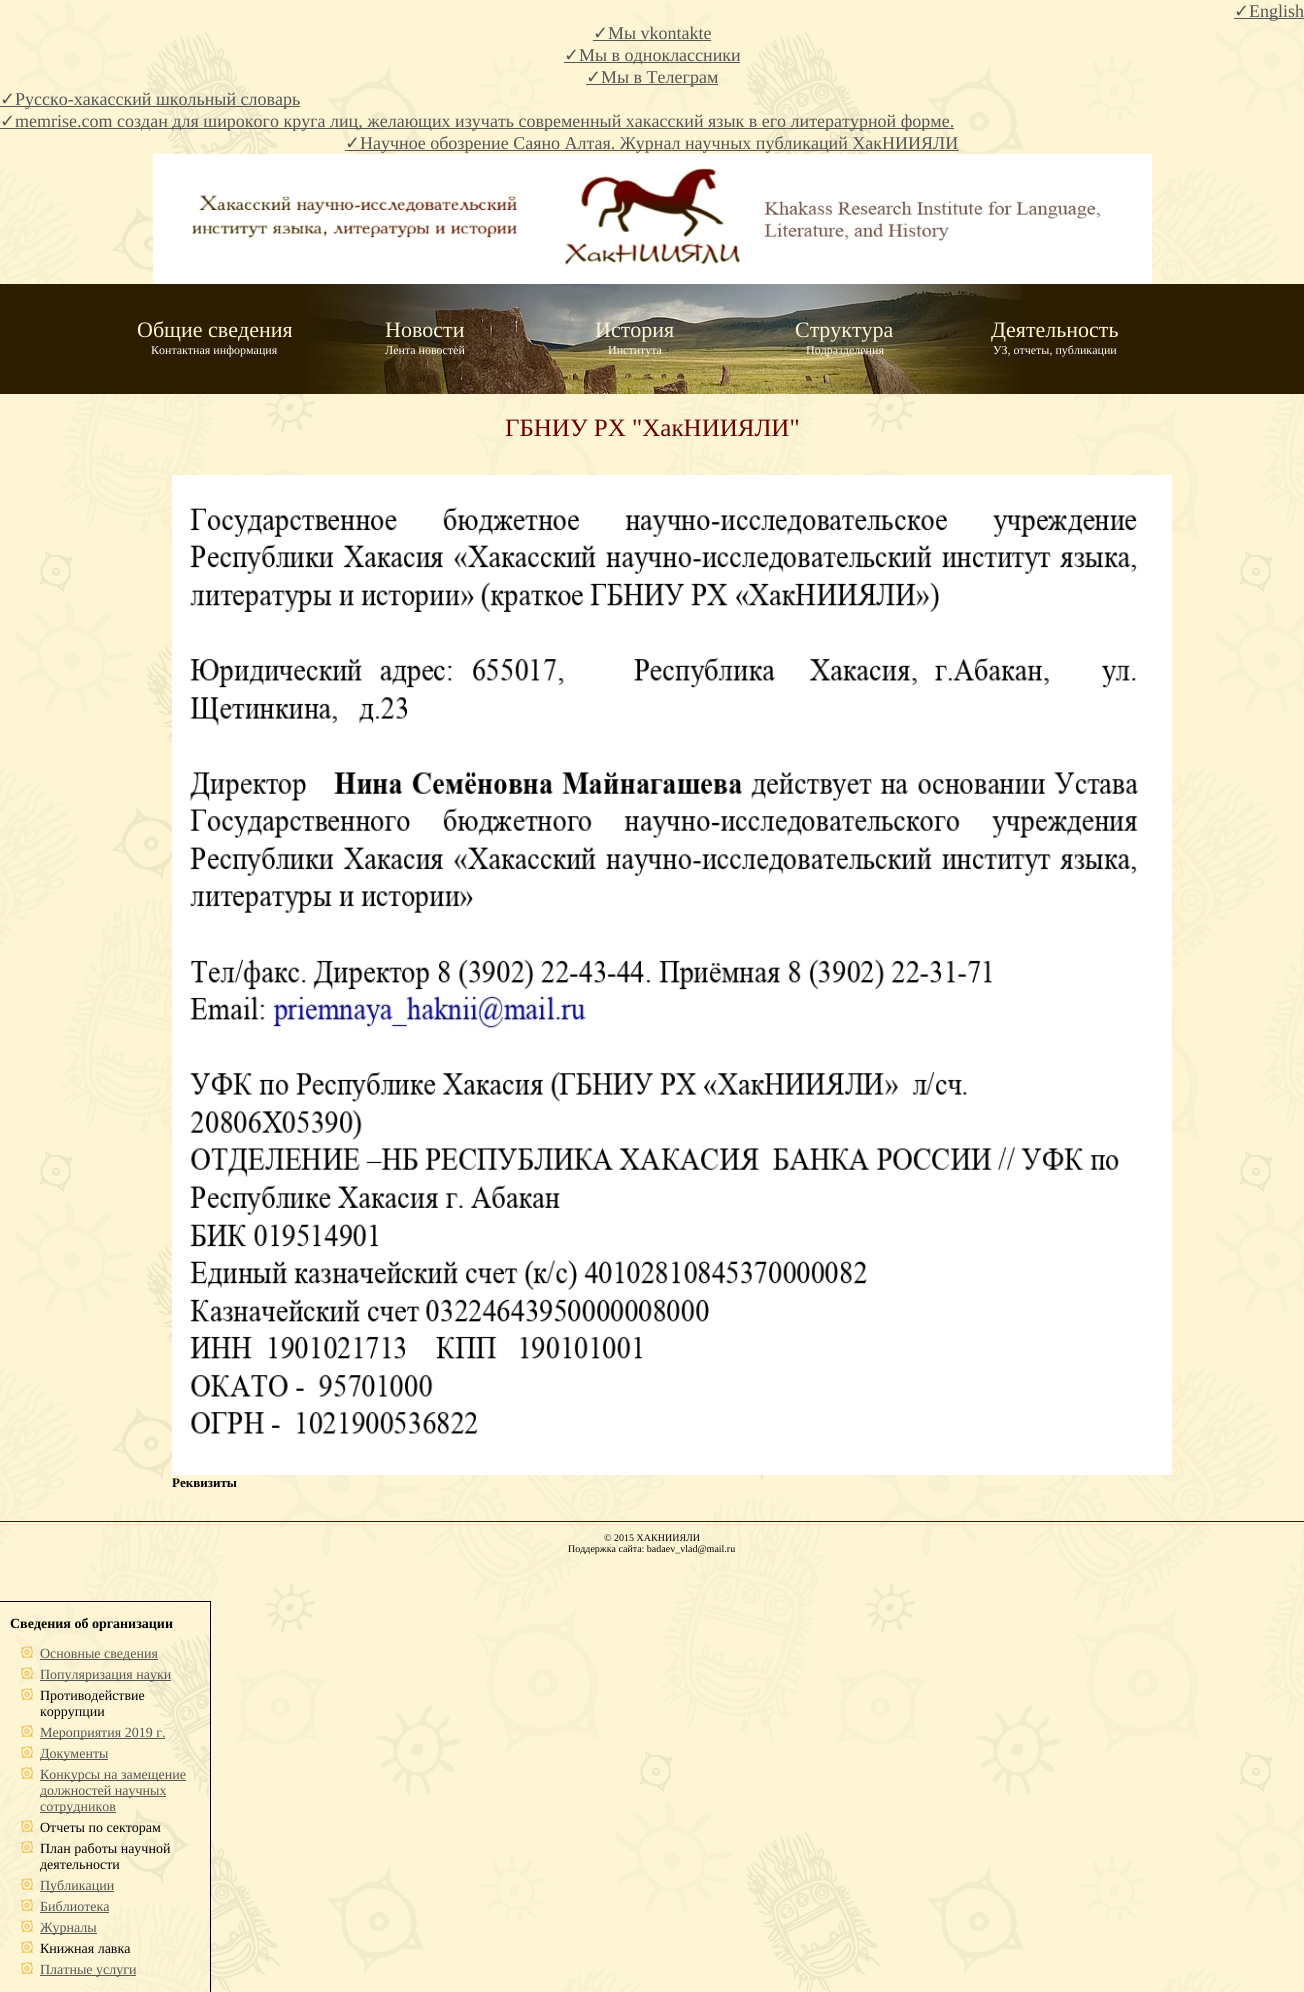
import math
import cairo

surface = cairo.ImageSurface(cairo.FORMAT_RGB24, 1304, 1992)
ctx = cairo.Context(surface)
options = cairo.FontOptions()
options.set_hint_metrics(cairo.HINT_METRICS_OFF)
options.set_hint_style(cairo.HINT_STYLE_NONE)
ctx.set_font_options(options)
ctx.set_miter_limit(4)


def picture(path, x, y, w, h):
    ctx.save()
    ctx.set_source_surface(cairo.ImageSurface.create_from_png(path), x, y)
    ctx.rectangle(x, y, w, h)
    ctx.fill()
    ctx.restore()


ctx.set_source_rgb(1, 1, 1)
ctx.paint()
picture("img1.png", 0, 0, 1304, 1992)
ctx.select_font_face("DejaVu Sans")
ctx.set_font_size(18)
ctx.set_source_rgb(0.333, 0.333, 0.333)
ctx.move_to(1234, 17)
ctx.show_text("✓")
ctx.rectangle(1234, 18, 70, 1)
ctx.fill()
ctx.select_font_face("Liberation Serif")
ctx.move_to(1249, 17)
ctx.show_text("English")
ctx.select_font_face("DejaVu Sans")
ctx.move_to(593, 39)
ctx.show_text("✓")
ctx.select_font_face("Liberation Serif")
ctx.move_to(608, 39)
ctx.show_text("Мы vkontakte")
ctx.rectangle(593, 40, 118, 1)
ctx.fill()
ctx.select_font_face("DejaVu Sans")
ctx.move_to(564, 61)
ctx.show_text("✓")
ctx.rectangle(564, 62, 176, 1)
ctx.fill()
ctx.select_font_face("Liberation Serif")
ctx.move_to(579, 61)
ctx.show_text("Мы в одноклассники")
ctx.select_font_face("DejaVu Sans")
ctx.move_to(586, 83)
ctx.show_text("✓")
ctx.rectangle(586, 84, 132, 1)
ctx.fill()
ctx.select_font_face("Liberation Serif")
ctx.move_to(601, 83)
ctx.show_text("Мы в Телеграм")
ctx.select_font_face("DejaVu Sans")
ctx.move_to(0, 105)
ctx.show_text("✓")
ctx.rectangle(0, 106, 300, 1)
ctx.fill()
ctx.select_font_face("Liberation Serif")
ctx.move_to(15, 105)
ctx.show_text("Русско-хакасский школьный словарь")
ctx.select_font_face("DejaVu Sans")
ctx.move_to(0, 127)
ctx.show_text("✓")
ctx.rectangle(0, 128, 954, 1)
ctx.fill()
ctx.select_font_face("Liberation Serif")
ctx.move_to(15, 127)
ctx.show_text("memrise.com создан для широкого круга лиц, желающих изучать современный хакасский язык в его литературной форме.")
ctx.select_font_face("DejaVu Sans")
ctx.move_to(345, 149)
ctx.show_text("✓")
ctx.rectangle(345, 150, 614, 1)
ctx.fill()
ctx.select_font_face("Liberation Serif")
ctx.move_to(360, 149)
ctx.show_text("Научное обозрение Саяно Алтая. Журнал научных публикаций ХакНИИЯЛИ")
picture("img2.png", 153, 154, 999, 130)
ctx.set_source_rgb(0.173, 0.114, 0)
ctx.rectangle(0, 284, 1304, 110)
ctx.fill()
picture("img3.png", 305, 284, 718, 110)
ctx.set_font_size(22)
ctx.set_source_rgb(0.992, 0.961, 0.831)
ctx.move_to(137, 337)
ctx.show_text("Общие сведения")
ctx.set_font_size(12)
ctx.set_source_rgb(1, 1, 1)
ctx.move_to(151, 354)
ctx.show_text("Контактная информация")
ctx.set_font_size(22)
ctx.set_source_rgb(0.992, 0.961, 0.831)
ctx.move_to(385, 337)
ctx.show_text("Новости")
ctx.set_font_size(12)
ctx.set_source_rgb(1, 1, 1)
ctx.move_to(385, 354)
ctx.show_text("Лента новостей")
ctx.set_font_size(22)
ctx.set_source_rgb(0.992, 0.961, 0.831)
ctx.move_to(595, 337)
ctx.show_text("История")
ctx.set_font_size(12)
ctx.set_source_rgb(1, 1, 1)
ctx.move_to(608, 354)
ctx.show_text("Института")
ctx.set_font_size(22)
ctx.set_source_rgb(0.992, 0.961, 0.831)
ctx.move_to(795, 337)
ctx.show_text("Структура")
ctx.set_font_size(12)
ctx.set_source_rgb(1, 1, 1)
ctx.move_to(806, 354)
ctx.show_text("Подразделения")
ctx.set_font_size(22)
ctx.set_source_rgb(0.992, 0.961, 0.831)
ctx.move_to(991, 337)
ctx.show_text("Деятельность")
ctx.set_font_size(12)
ctx.set_source_rgb(1, 1, 1)
ctx.move_to(993, 354)
ctx.show_text("УЗ, отчеты, публикации")
ctx.set_font_size(25)
ctx.set_source_rgb(0.416, 0, 0)
ctx.move_to(505, 436)
ctx.show_text("ГБНИУ РХ \"ХакНИИЯЛИ\"")
picture("img4.png", 172, 475, 1000, 1000)
ctx.select_font_face("Liberation Serif", cairo.FONT_SLANT_NORMAL, cairo.FONT_WEIGHT_BOLD)
ctx.set_font_size(13)
ctx.set_source_rgb(0, 0, 0)
ctx.move_to(172, 1487)
ctx.show_text("Реквизиты")
ctx.set_source_rgb(0.416, 0, 0)
ctx.rectangle(0, 1521, 1304, 1)
ctx.fill()
ctx.select_font_face("Liberation Serif")
ctx.set_font_size(10)
ctx.set_source_rgb(0, 0, 0)
ctx.move_to(604, 1541)
ctx.show_text("© 2015 ХАКНИИЯЛИ")
ctx.move_to(568, 1552)
ctx.show_text("Поддержка сайта: badaev_vlad@mail.ru")
picture("img5.png", 0, 1602, 210, 390)
ctx.rectangle(0, 1601, 211, 1)
ctx.fill()
ctx.rectangle(210, 1601, 1, 391)
ctx.fill()
ctx.select_font_face("Liberation Serif", cairo.FONT_SLANT_NORMAL, cairo.FONT_WEIGHT_BOLD)
ctx.set_font_size(14)
ctx.move_to(10, 1628)
ctx.show_text("Сведения об организации")
picture("img6.png", 21, 1646, 12, 12)
ctx.set_source_rgb(0.333, 0.333, 0.333)
ctx.rectangle(40, 1659, 118, 1)
ctx.fill()
ctx.select_font_face("Liberation Serif")
ctx.move_to(40, 1658)
ctx.show_text("Основные сведения")
picture("img7.png", 21, 1667, 12, 12)
ctx.rectangle(40, 1680, 131, 1)
ctx.fill()
ctx.move_to(40, 1679)
ctx.show_text("Популяризация науки")
picture("img8.png", 21, 1688, 12, 12)
ctx.set_source_rgb(0, 0, 0)
ctx.move_to(40, 1700)
ctx.show_text("Противодействие")
ctx.move_to(40, 1716)
ctx.show_text("коррупции")
picture("img8.png", 21, 1725, 12, 12)
ctx.set_source_rgb(0.333, 0.333, 0.333)
ctx.rectangle(40, 1738, 125, 1)
ctx.fill()
ctx.move_to(40, 1737)
ctx.show_text("Мероприятия 2019 г.")
picture("img8.png", 21, 1746, 12, 12)
ctx.rectangle(40, 1759, 68, 1)
ctx.fill()
ctx.move_to(40, 1758)
ctx.show_text("Документы")
picture("img8.png", 21, 1767, 12, 12)
ctx.rectangle(40, 1780, 146, 1)
ctx.fill()
ctx.move_to(40, 1779)
ctx.show_text("Конкурсы на замещение")
ctx.rectangle(40, 1796, 126, 1)
ctx.fill()
ctx.move_to(40, 1795)
ctx.show_text("должностей научных")
ctx.rectangle(40, 1812, 76, 1)
ctx.fill()
ctx.move_to(40, 1811)
ctx.show_text("сотрудников")
picture("img9.png", 21, 1820, 12, 12)
ctx.set_source_rgb(0, 0, 0)
ctx.move_to(40, 1832)
ctx.show_text("Отчеты по секторам")
picture("img10.png", 21, 1841, 12, 12)
ctx.move_to(40, 1853)
ctx.show_text("План работы научной")
ctx.move_to(40, 1869)
ctx.show_text("деятельности")
picture("img11.png", 21, 1878, 12, 12)
ctx.set_source_rgb(0.333, 0.333, 0.333)
ctx.rectangle(40, 1891, 74, 1)
ctx.fill()
ctx.move_to(40, 1890)
ctx.show_text("Публикации")
picture("img12.png", 21, 1899, 12, 12)
ctx.move_to(40, 1911)
ctx.show_text("Библиотека")
ctx.rectangle(40, 1912, 69, 1)
ctx.fill()
picture("img13.png", 21, 1920, 12, 12)
ctx.rectangle(40, 1933, 57, 1)
ctx.fill()
ctx.move_to(40, 1932)
ctx.show_text("Журналы")
picture("img8.png", 21, 1941, 12, 12)
ctx.set_source_rgb(0, 0, 0)
ctx.move_to(40, 1953)
ctx.show_text("Книжная лавка")
picture("img8.png", 21, 1962, 12, 12)
ctx.set_source_rgb(0.333, 0.333, 0.333)
ctx.rectangle(40, 1975, 96, 1)
ctx.fill()
ctx.move_to(40, 1974)
ctx.show_text("Платные услуги")
surface.write_to_png("page.png")
